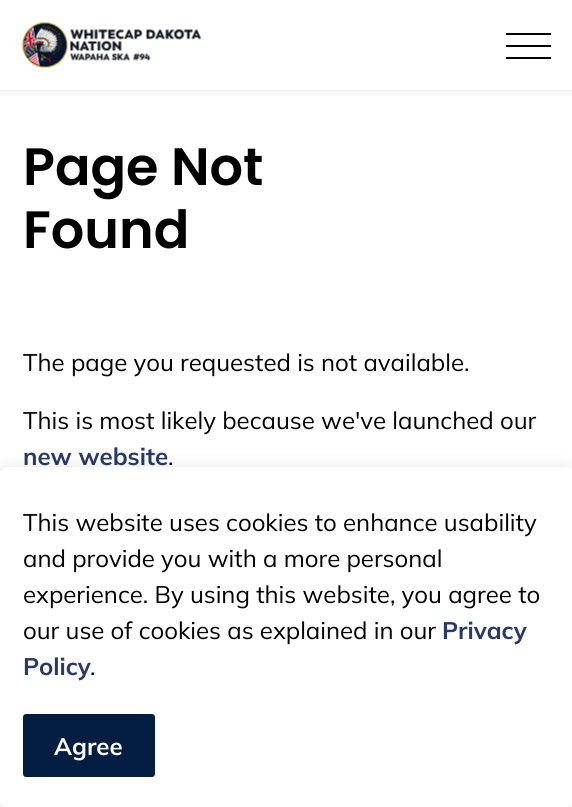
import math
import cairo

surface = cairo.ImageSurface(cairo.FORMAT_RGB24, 572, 807)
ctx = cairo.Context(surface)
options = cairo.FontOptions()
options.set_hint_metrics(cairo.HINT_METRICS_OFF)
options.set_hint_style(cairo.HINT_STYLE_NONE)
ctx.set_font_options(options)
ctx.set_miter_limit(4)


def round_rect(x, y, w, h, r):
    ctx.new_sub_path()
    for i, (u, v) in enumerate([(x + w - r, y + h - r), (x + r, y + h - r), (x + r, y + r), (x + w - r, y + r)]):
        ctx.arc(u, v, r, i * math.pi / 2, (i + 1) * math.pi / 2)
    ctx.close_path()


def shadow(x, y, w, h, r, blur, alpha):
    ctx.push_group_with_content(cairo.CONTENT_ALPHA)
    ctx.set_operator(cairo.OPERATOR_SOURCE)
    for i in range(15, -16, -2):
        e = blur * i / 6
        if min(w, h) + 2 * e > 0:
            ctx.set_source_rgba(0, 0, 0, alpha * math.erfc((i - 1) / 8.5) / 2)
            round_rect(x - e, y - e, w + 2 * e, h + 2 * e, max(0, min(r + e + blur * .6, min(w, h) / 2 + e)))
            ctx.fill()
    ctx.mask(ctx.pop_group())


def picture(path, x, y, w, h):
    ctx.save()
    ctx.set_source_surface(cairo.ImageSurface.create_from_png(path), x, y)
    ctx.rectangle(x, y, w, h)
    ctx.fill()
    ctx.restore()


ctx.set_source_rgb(1, 1, 1)
ctx.paint()
ctx.save()
ctx.rectangle(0, 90, 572, 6)
ctx.clip()
ctx.set_source_rgb(0, 0, 0)
shadow(0, 0, 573, 90, 0, 7.5, 0.1)
ctx.restore()
picture("img1.png", 22, 22, 180, 46)
ctx.set_source_rgb(0, 0, 0)
ctx.rectangle(506, 45, 45, 2)
ctx.fill()
ctx.rectangle(506, 33, 45, 2)
ctx.fill()
ctx.rectangle(506, 57, 45, 2)
ctx.fill()
ctx.select_font_face("Poppins SemiBold")
ctx.set_font_size(52.5)
ctx.move_to(23, 185)
ctx.show_text("Page Not")
ctx.move_to(23, 248)
ctx.show_text("Found")
ctx.select_font_face("Mulish")
ctx.set_font_size(24)
ctx.move_to(23, 371)
ctx.show_text("The page you requested is not available.")
ctx.move_to(23, 429)
ctx.show_text("This is most likely because we've launched our")
ctx.select_font_face("Mulish", cairo.FONT_SLANT_NORMAL, cairo.FONT_WEIGHT_BOLD)
ctx.set_source_rgb(0.153, 0.22, 0.424)
ctx.move_to(23, 465)
ctx.show_text("new website")
ctx.select_font_face("Mulish")
ctx.set_source_rgb(0, 0, 0)
ctx.move_to(168, 465)
ctx.show_text(".")
ctx.set_source_rgb(0, 0, 0)
shadow(0, 467, 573, 340, 8, 7.5, 0.1)
ctx.set_source_rgb(1, 1, 1)
round_rect(0, 467, 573, 340, 8)
ctx.fill()
ctx.set_source_rgb(0, 0, 0)
ctx.move_to(23, 531)
ctx.show_text("This website uses cookies to enhance usability")
ctx.move_to(23, 567)
ctx.show_text("and provide you with a more personal")
ctx.move_to(23, 603)
ctx.show_text("experience. By using this website, you agree to")
ctx.move_to(23, 639)
ctx.show_text("our use of cookies as explained in our")
ctx.select_font_face("Mulish", cairo.FONT_SLANT_NORMAL, cairo.FONT_WEIGHT_BOLD)
ctx.set_source_rgb(0.153, 0.22, 0.424)
ctx.move_to(442, 639)
ctx.show_text("Privacy")
ctx.move_to(23, 675)
ctx.show_text("Policy")
ctx.select_font_face("Mulish")
ctx.set_source_rgb(0, 0, 0)
ctx.move_to(90, 675)
ctx.show_text(".")
ctx.set_source_rgb(0.016, 0.118, 0.259)
round_rect(24, 715, 130, 61, 2)
ctx.fill_preserve()
ctx.stroke()
ctx.select_font_face("Mulish", cairo.FONT_SLANT_NORMAL, cairo.FONT_WEIGHT_BOLD)
ctx.set_source_rgb(1, 1, 1)
ctx.move_to(54, 755)
ctx.show_text("Agree")
surface.write_to_png("page.png")
